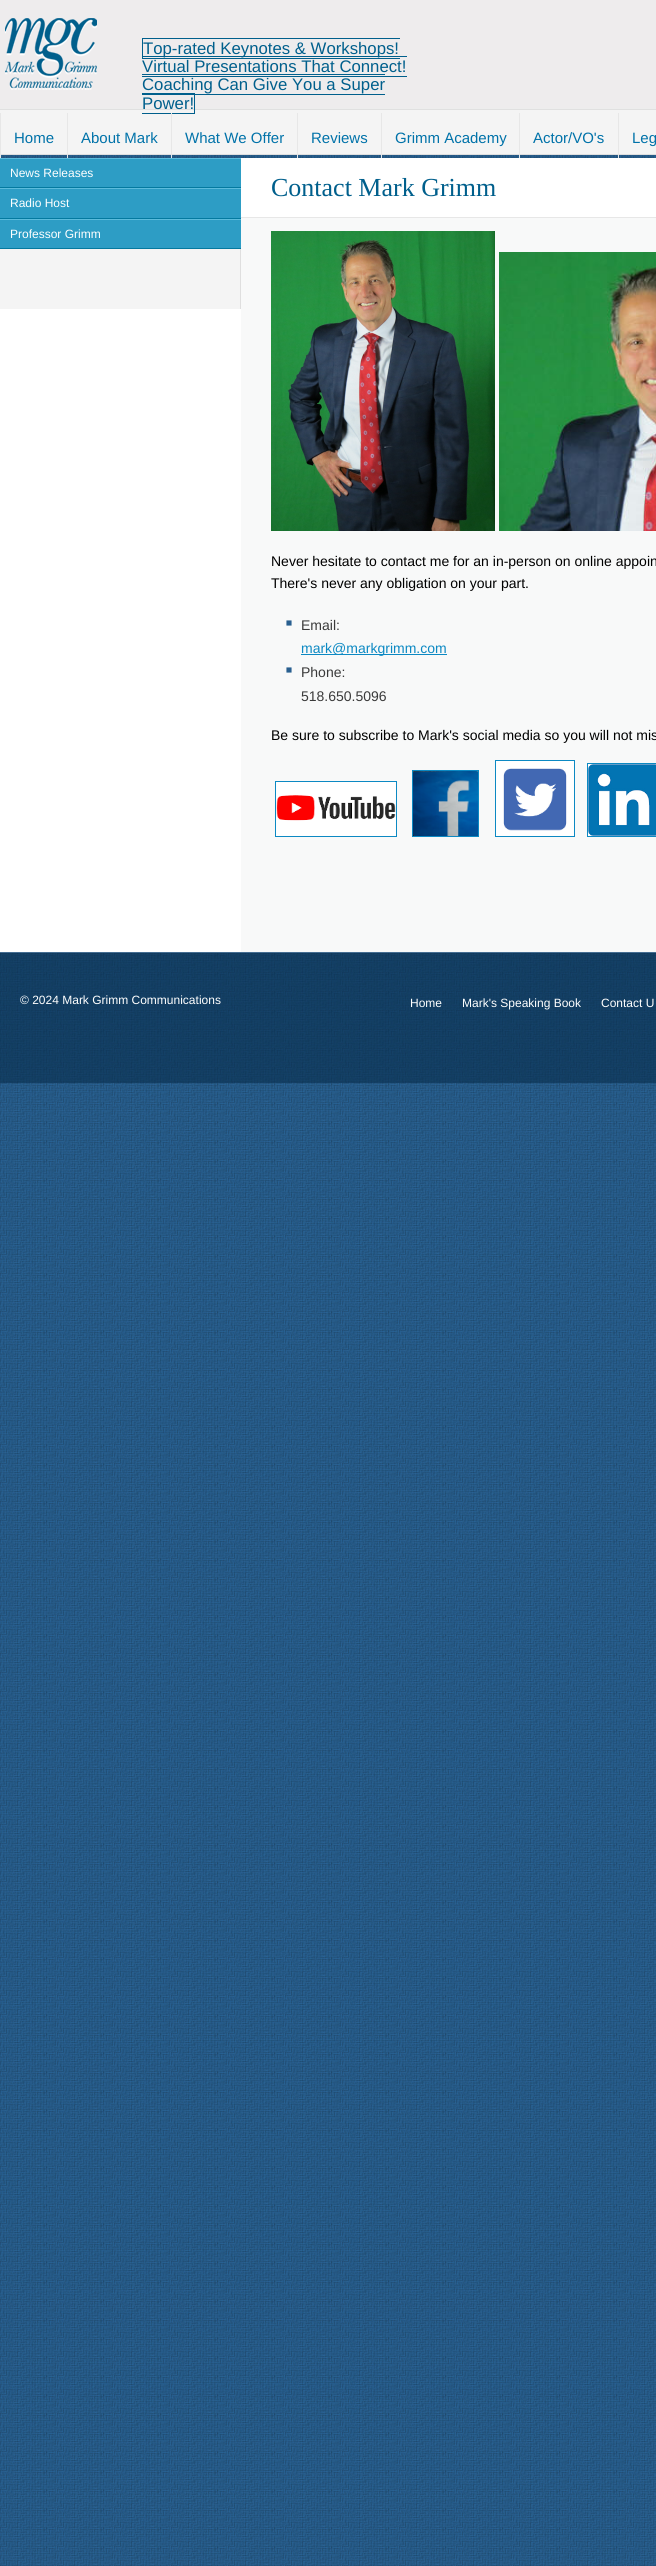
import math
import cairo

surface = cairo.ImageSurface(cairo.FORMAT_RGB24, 656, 2566)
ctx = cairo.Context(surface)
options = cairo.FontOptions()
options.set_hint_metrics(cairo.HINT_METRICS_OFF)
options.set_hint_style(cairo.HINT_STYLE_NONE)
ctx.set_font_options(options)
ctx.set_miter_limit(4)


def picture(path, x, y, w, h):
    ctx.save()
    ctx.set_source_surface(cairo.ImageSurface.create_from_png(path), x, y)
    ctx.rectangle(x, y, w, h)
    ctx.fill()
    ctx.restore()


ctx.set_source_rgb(1, 1, 1)
ctx.paint()
picture("img1.png", 0, 155, 656, 2411)
picture("img2.png", 0, 0, 656, 155)
picture("img3.png", 5, 18, 92, 72)
ctx.set_source_rgb(0, 0.373, 0.549)
ctx.rectangle(142, 38, 258, 1)
ctx.fill()
ctx.rectangle(142, 58, 258, 1)
ctx.fill()
ctx.rectangle(142, 38, 1, 21)
ctx.fill()
ctx.rectangle(142, 56, 265, 1)
ctx.fill()
ctx.select_font_face("Liberation Sans")
ctx.set_font_size(16.75)
ctx.move_to(143, 54)
ctx.show_text("Top-rated Keynotes & Workshops!")
ctx.move_to(142, 72)
ctx.show_text("Virtual Presentations That Connect!")
ctx.rectangle(142, 74, 243, 1)
ctx.fill()
ctx.rectangle(142, 93, 53, 1)
ctx.fill()
ctx.rectangle(142, 94, 243, 1)
ctx.fill()
ctx.rectangle(194, 93, 1, 21)
ctx.fill()
ctx.move_to(142, 90)
ctx.show_text("Coaching Can Give You a Super")
ctx.rectangle(142, 76, 265, 1)
ctx.fill()
ctx.move_to(142, 109)
ctx.show_text("Power!")
ctx.rectangle(142, 113, 53, 1)
ctx.fill()
ctx.set_source_rgb(0.906, 0.906, 0.906)
ctx.rectangle(67, 113, 1, 45)
ctx.fill()
ctx.rectangle(0, 113, 1, 45)
ctx.fill()
ctx.set_font_size(15)
ctx.set_source_rgb(0, 0.447, 0.663)
ctx.move_to(14, 143)
ctx.show_text("Home")
ctx.set_source_rgb(0.906, 0.906, 0.906)
ctx.rectangle(171, 113, 1, 45)
ctx.fill()
ctx.set_source_rgb(0, 0.447, 0.663)
ctx.move_to(81, 143)
ctx.show_text("About Mark")
ctx.set_source_rgb(0.906, 0.906, 0.906)
ctx.rectangle(297, 113, 1, 45)
ctx.fill()
ctx.set_source_rgb(0, 0.447, 0.663)
ctx.move_to(185, 143)
ctx.show_text("What We Offer")
ctx.set_source_rgb(0.906, 0.906, 0.906)
ctx.rectangle(381, 113, 1, 45)
ctx.fill()
ctx.set_source_rgb(0, 0.447, 0.663)
ctx.move_to(311, 143)
ctx.show_text("Reviews")
ctx.set_source_rgb(0.906, 0.906, 0.906)
ctx.rectangle(519, 113, 1, 45)
ctx.fill()
ctx.set_source_rgb(0, 0.447, 0.663)
ctx.move_to(395, 143)
ctx.show_text("Grimm Academy")
ctx.set_source_rgb(0.906, 0.906, 0.906)
ctx.rectangle(618, 113, 1, 45)
ctx.fill()
ctx.set_source_rgb(0, 0.447, 0.663)
ctx.move_to(533, 143)
ctx.show_text("Actor/VO's")
ctx.move_to(632, 143)
ctx.show_text("Leg")
ctx.set_source_rgb(1, 1, 1)
ctx.rectangle(0, 309, 241, 643)
ctx.fill()
ctx.set_source_rgb(0.957, 0.957, 0.957)
ctx.rectangle(0, 249, 240, 60)
ctx.fill()
ctx.set_source_rgb(0.875, 0.875, 0.875)
ctx.rectangle(240, 249, 1, 60)
ctx.fill()
ctx.set_source_rgb(0.176, 0.616, 0.773)
ctx.rectangle(0, 159, 241, 28)
ctx.fill()
ctx.set_source_rgb(0.361, 0.737, 0.863)
ctx.rectangle(0, 158, 241, 1)
ctx.fill()
ctx.set_source_rgb(0.016, 0.475, 0.624)
ctx.rectangle(0, 187, 241, 1)
ctx.fill()
ctx.set_font_size(12)
ctx.set_source_rgb(1, 1, 1)
ctx.move_to(10, 177)
ctx.show_text("News Releases")
ctx.set_source_rgb(0.176, 0.616, 0.773)
ctx.rectangle(0, 189, 241, 29)
ctx.fill()
ctx.set_source_rgb(0.361, 0.737, 0.863)
ctx.rectangle(0, 188, 241, 1)
ctx.fill()
ctx.set_source_rgb(0.016, 0.475, 0.624)
ctx.rectangle(0, 218, 241, 1)
ctx.fill()
ctx.set_source_rgb(1, 1, 1)
ctx.move_to(10, 207)
ctx.show_text("Radio Host")
ctx.set_source_rgb(0.176, 0.616, 0.773)
ctx.rectangle(0, 220, 241, 28)
ctx.fill()
ctx.set_source_rgb(0.361, 0.737, 0.863)
ctx.rectangle(0, 219, 241, 1)
ctx.fill()
ctx.set_source_rgb(0.016, 0.475, 0.624)
ctx.rectangle(0, 248, 241, 1)
ctx.fill()
ctx.set_source_rgb(1, 1, 1)
ctx.move_to(10, 238)
ctx.show_text("Professor Grimm")
ctx.set_source_rgb(0.969, 0.976, 0.976)
ctx.rectangle(241, 218, 415, 734)
ctx.fill()
ctx.set_source_rgb(1, 1, 1)
ctx.rectangle(241, 158, 415, 59)
ctx.fill()
ctx.set_source_rgb(0.906, 0.906, 0.906)
ctx.rectangle(241, 217, 415, 1)
ctx.fill()
ctx.select_font_face("Liberation Serif")
ctx.set_font_size(26)
ctx.set_source_rgb(0, 0.373, 0.549)
ctx.move_to(271, 196)
ctx.show_text("Contact Mark Grimm")
picture("img4.png", 271, 231, 224, 300)
picture("img5.png", 499, 252, 157, 279)
ctx.select_font_face("Liberation Sans")
ctx.set_font_size(14)
ctx.set_source_rgb(0, 0, 0)
ctx.move_to(271, 566)
ctx.show_text("Never hesitate to contact me for an in-person on online appoin")
ctx.move_to(271, 588)
ctx.show_text("There's never any obligation on your part.")
picture("img6.png", 286, 620, 6, 6)
ctx.set_source_rgb(0.227, 0.227, 0.227)
ctx.move_to(301, 630)
ctx.show_text("Email:")
ctx.set_source_rgb(0.047, 0.537, 0.765)
ctx.rectangle(301, 654, 146, 1)
ctx.fill()
ctx.move_to(301, 653)
ctx.show_text("mark@markgrimm.com")
picture("img6.png", 286, 667, 6, 6)
ctx.set_source_rgb(0.227, 0.227, 0.227)
ctx.move_to(301, 677)
ctx.show_text("Phone:")
ctx.move_to(301, 701)
ctx.show_text("518.650.5096")
ctx.set_source_rgb(0, 0, 0)
ctx.move_to(271, 740)
ctx.show_text("Be sure to subscribe to Mark's social media so you will not mis")
ctx.rectangle(495.5, 760.5, 79, 76)
ctx.set_source_rgb(0.047, 0.537, 0.765)
ctx.set_line_width(1)
ctx.stroke()
picture("img7.png", 496, 761, 78, 75)
ctx.rectangle(587.5, 763.5, 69, 73)
ctx.stroke()
ctx.rectangle(412.5, 770.5, 66, 66)
ctx.stroke()
picture("img8.png", 588, 764, 68, 72)
ctx.rectangle(275.5, 781.5, 121, 55)
ctx.stroke()
picture("img9.png", 413, 771, 65, 65)
picture("img10.png", 276, 782, 120, 54)
picture("img11.png", 0, 953, 656, 130)
ctx.set_source_rgb(0.267, 0.427, 0.573)
ctx.rectangle(0, 952, 656, 1)
ctx.fill()
ctx.set_font_size(12)
ctx.set_source_rgb(1, 1, 1)
ctx.move_to(20, 1004)
ctx.show_text("© 2024 Mark Grimm Communications")
ctx.move_to(410, 1007)
ctx.show_text("Home")
ctx.move_to(462, 1007)
ctx.show_text("Mark's Speaking Book")
ctx.move_to(601, 1007)
ctx.show_text("Contact U")
surface.write_to_png("page.png")
